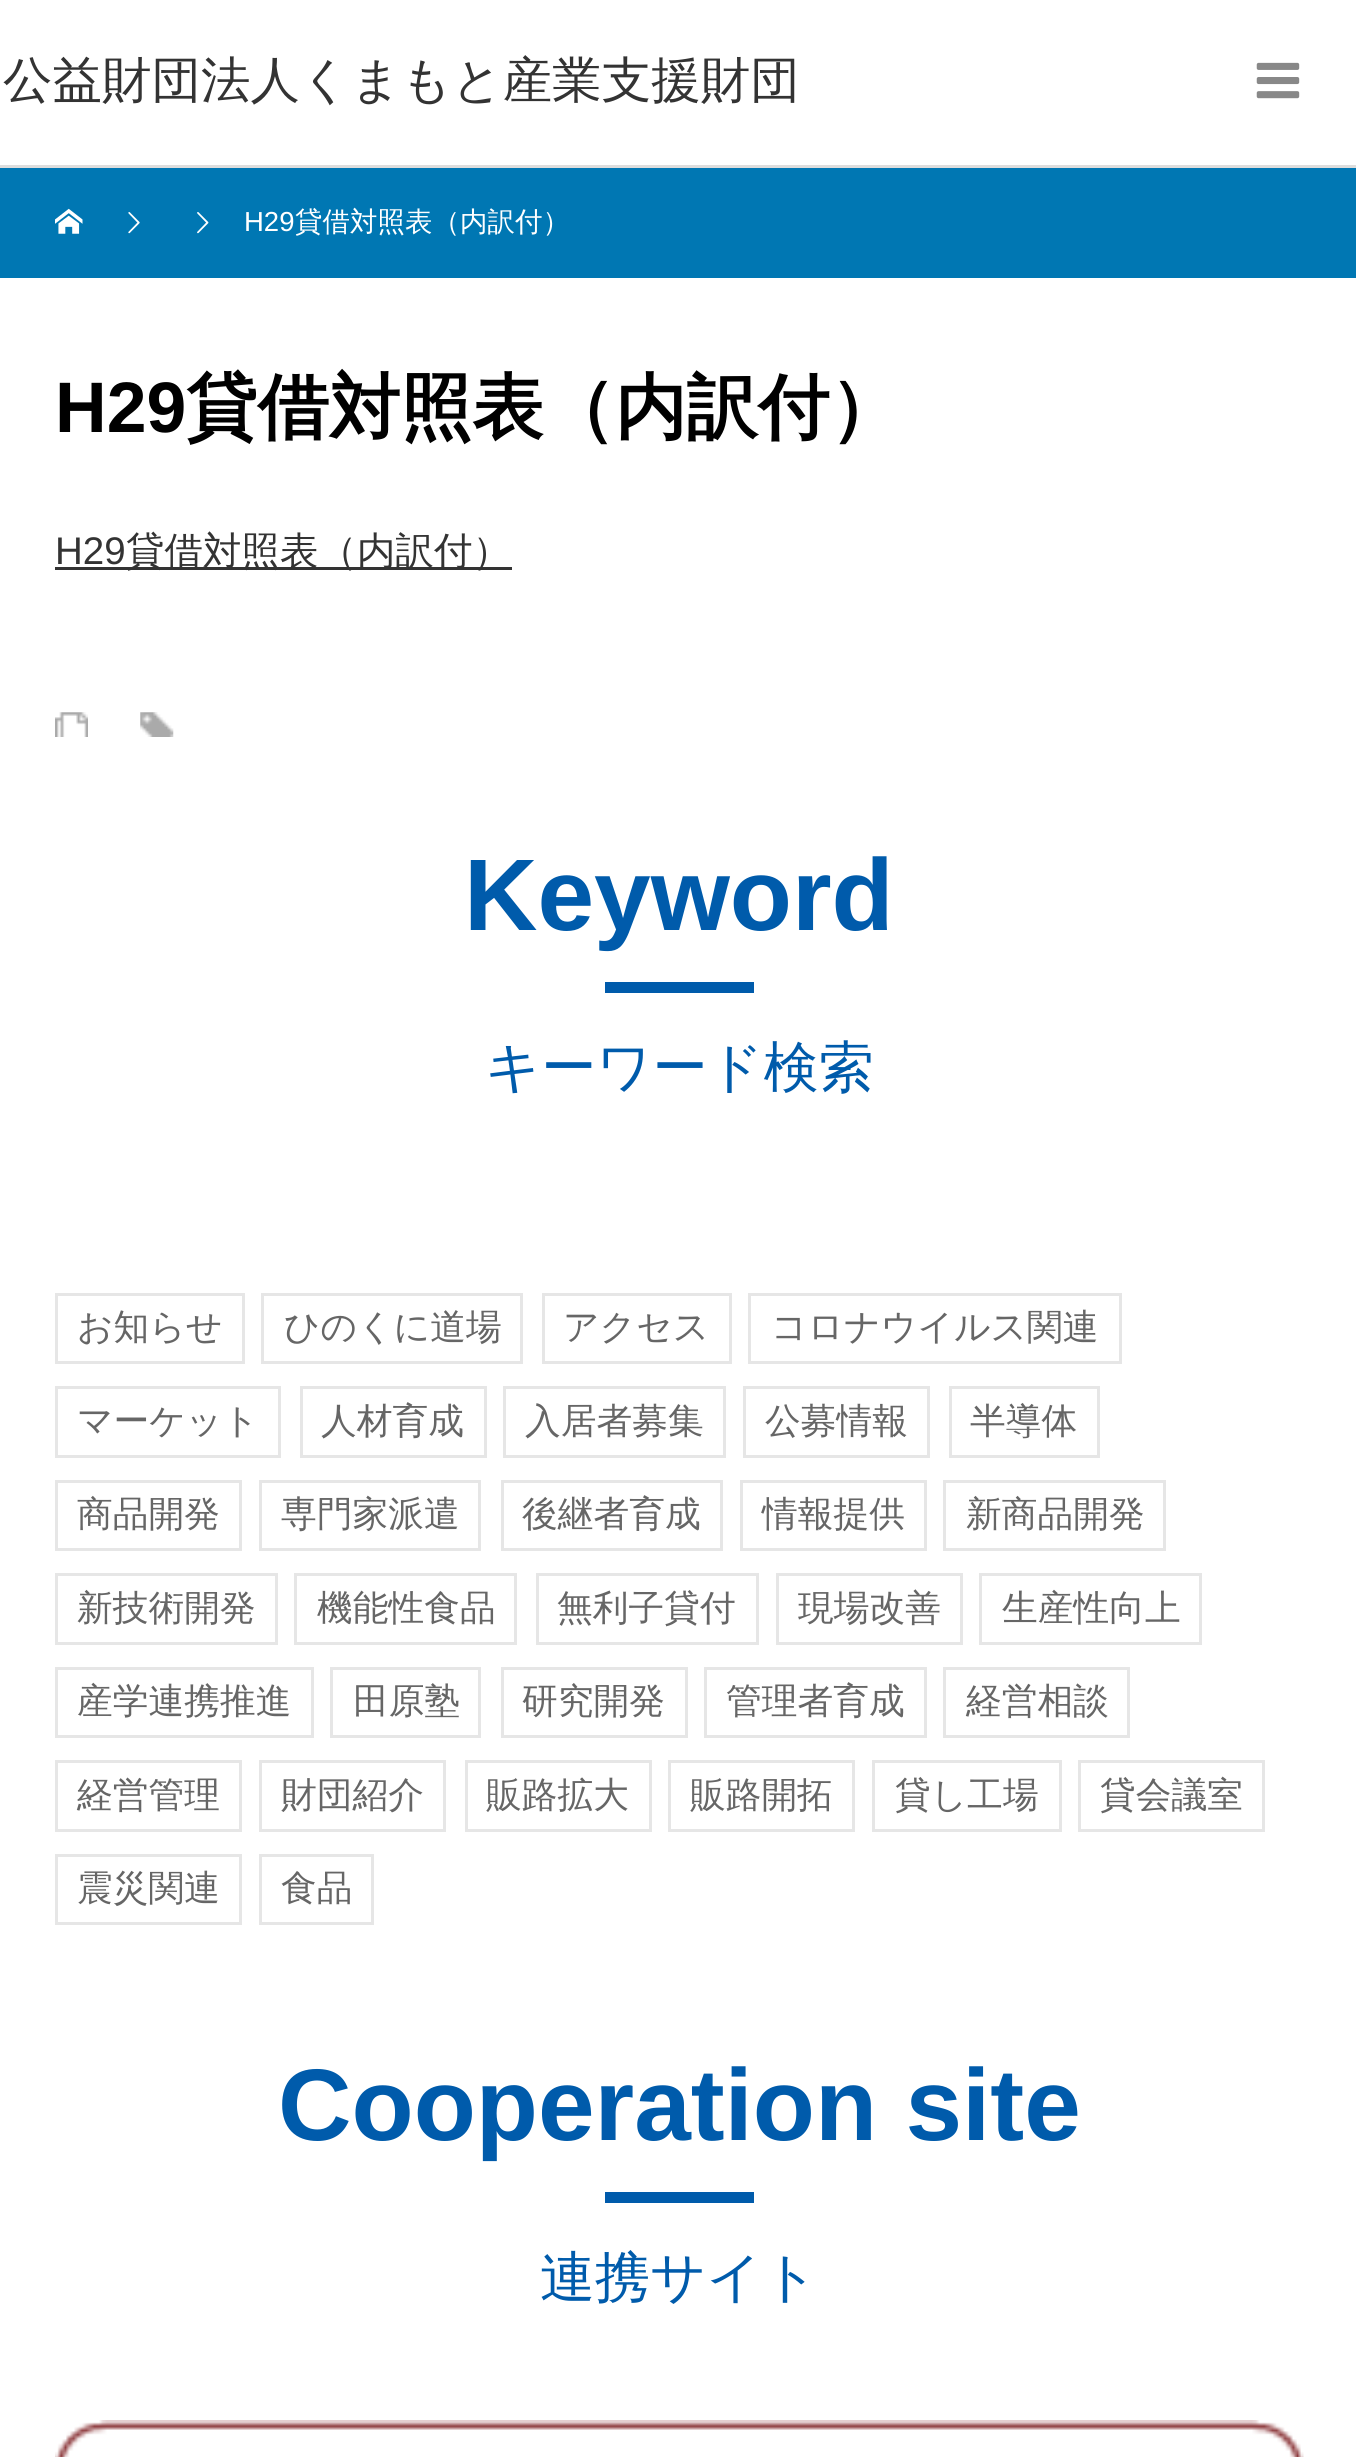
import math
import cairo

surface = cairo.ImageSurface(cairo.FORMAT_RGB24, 1356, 2457)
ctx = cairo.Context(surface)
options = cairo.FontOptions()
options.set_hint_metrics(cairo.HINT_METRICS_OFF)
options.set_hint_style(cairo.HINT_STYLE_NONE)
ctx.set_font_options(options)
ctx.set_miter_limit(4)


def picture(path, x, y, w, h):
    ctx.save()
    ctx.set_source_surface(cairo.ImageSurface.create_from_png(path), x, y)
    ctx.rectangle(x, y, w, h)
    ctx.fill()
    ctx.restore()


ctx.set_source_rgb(1, 1, 1)
ctx.paint()
ctx.set_source_rgb(0.867, 0.867, 0.867)
ctx.rectangle(0, 165, 1356, 3)
ctx.fill()
ctx.select_font_face("WenQuanYi Zen Hei Medium")
ctx.set_font_size(49.5)
ctx.set_source_rgb(0.2, 0.2, 0.2)
ctx.move_to(3, 97)
ctx.show_text("公益財団法人くまもと産業支援財団")
picture("img1.png", 1256, 62, 44, 37)
ctx.set_source_rgb(0, 0.467, 0.702)
ctx.rectangle(0, 168, 1356, 110)
ctx.fill()
picture("img2.png", 55, 208, 28, 26)
picture("img3.png", 128, 212, 12, 22)
picture("img4.png", 197, 212, 12, 22)
ctx.select_font_face("Liberation Sans")
ctx.set_font_size(27.5)
ctx.set_source_rgb(1, 1, 1)
ctx.move_to(244, 231)
ctx.show_text("H29")
ctx.select_font_face("WenQuanYi Zen Hei Medium")
ctx.move_to(295, 231)
ctx.show_text("貸借対照表（内訳付）")
ctx.select_font_face("Liberation Sans", cairo.FONT_SLANT_NORMAL, cairo.FONT_WEIGHT_BOLD)
ctx.set_font_size(71.5)
ctx.set_source_rgb(0, 0, 0)
ctx.move_to(55, 432)
ctx.show_text("H29")
ctx.select_font_face("WenQuanYi Zen Hei", cairo.FONT_SLANT_NORMAL, cairo.FONT_WEIGHT_BOLD)
ctx.move_to(186, 432)
ctx.show_text("貸借対照表（内訳付）")
ctx.select_font_face("Liberation Sans")
ctx.set_font_size(38.5)
ctx.set_source_rgb(0.2, 0.2, 0.2)
ctx.move_to(55, 564)
ctx.show_text("H29")
ctx.rectangle(55, 567, 457, 3)
ctx.fill()
ctx.select_font_face("WenQuanYi Zen Hei Medium")
ctx.move_to(126, 564)
ctx.show_text("貸借対照表（内訳付）")
picture("img5.png", 55, 712, 33, 25)
picture("img6.png", 140, 712, 34, 25)
ctx.select_font_face("Liberation Sans", cairo.FONT_SLANT_NORMAL, cairo.FONT_WEIGHT_BOLD)
ctx.set_font_size(101.75)
ctx.set_source_rgb(0, 0.357, 0.671)
ctx.move_to(464, 930)
ctx.show_text("Keyword")
ctx.rectangle(605, 982, 149, 11)
ctx.fill()
ctx.select_font_face("WenQuanYi Zen Hei Medium")
ctx.set_font_size(55)
ctx.move_to(485, 1086)
ctx.show_text("キーワード検索")
ctx.rectangle(56.5, 1294.5, 187, 68)
ctx.set_source_rgb(0.902, 0.902, 0.902)
ctx.set_line_width(3)
ctx.stroke()
ctx.set_font_size(35.75)
ctx.set_source_rgb(0.4, 0.4, 0.4)
ctx.move_to(77, 1339)
ctx.show_text("お知らせ")
ctx.rectangle(262.5, 1294.5, 259, 68)
ctx.set_source_rgb(0.902, 0.902, 0.902)
ctx.stroke()
ctx.set_source_rgb(0.4, 0.4, 0.4)
ctx.move_to(284, 1339)
ctx.show_text("ひのくに道場")
ctx.rectangle(543.5, 1294.5, 187, 68)
ctx.set_source_rgb(0.902, 0.902, 0.902)
ctx.stroke()
ctx.set_source_rgb(0.4, 0.4, 0.4)
ctx.move_to(563, 1339)
ctx.show_text("アクセス")
ctx.rectangle(749.5, 1294.5, 371, 68)
ctx.set_source_rgb(0.902, 0.902, 0.902)
ctx.stroke()
ctx.set_source_rgb(0.4, 0.4, 0.4)
ctx.move_to(771, 1339)
ctx.show_text("コロナウイルス関連")
ctx.rectangle(56.5, 1387.5, 223, 69)
ctx.set_source_rgb(0.902, 0.902, 0.902)
ctx.stroke()
ctx.set_source_rgb(0.4, 0.4, 0.4)
ctx.move_to(77, 1433)
ctx.show_text("マーケット")
ctx.rectangle(301.5, 1387.5, 184, 69)
ctx.set_source_rgb(0.902, 0.902, 0.902)
ctx.stroke()
ctx.set_source_rgb(0.4, 0.4, 0.4)
ctx.move_to(321, 1433)
ctx.show_text("人材育成")
ctx.rectangle(504.5, 1387.5, 220, 69)
ctx.set_source_rgb(0.902, 0.902, 0.902)
ctx.stroke()
ctx.set_source_rgb(0.4, 0.4, 0.4)
ctx.move_to(525, 1433)
ctx.show_text("入居者募集")
ctx.rectangle(744.5, 1387.5, 184, 69)
ctx.set_source_rgb(0.902, 0.902, 0.902)
ctx.stroke()
ctx.set_source_rgb(0.4, 0.4, 0.4)
ctx.move_to(765, 1433)
ctx.show_text("公募情報")
ctx.rectangle(950.5, 1387.5, 148, 69)
ctx.set_source_rgb(0.902, 0.902, 0.902)
ctx.stroke()
ctx.set_source_rgb(0.4, 0.4, 0.4)
ctx.move_to(970, 1433)
ctx.show_text("半導体")
ctx.rectangle(56.5, 1481.5, 184, 68)
ctx.set_source_rgb(0.902, 0.902, 0.902)
ctx.stroke()
ctx.set_source_rgb(0.4, 0.4, 0.4)
ctx.move_to(77, 1526)
ctx.show_text("商品開発")
ctx.rectangle(260.5, 1481.5, 219, 68)
ctx.set_source_rgb(0.902, 0.902, 0.902)
ctx.stroke()
ctx.set_source_rgb(0.4, 0.4, 0.4)
ctx.move_to(281, 1526)
ctx.show_text("専門家派遣")
ctx.rectangle(502.5, 1481.5, 219, 68)
ctx.set_source_rgb(0.902, 0.902, 0.902)
ctx.stroke()
ctx.set_source_rgb(0.4, 0.4, 0.4)
ctx.move_to(522, 1526)
ctx.show_text("後継者育成")
ctx.rectangle(741.5, 1481.5, 184, 68)
ctx.set_source_rgb(0.902, 0.902, 0.902)
ctx.stroke()
ctx.set_source_rgb(0.4, 0.4, 0.4)
ctx.move_to(762, 1526)
ctx.show_text("情報提供")
ctx.rectangle(944.5, 1481.5, 220, 68)
ctx.set_source_rgb(0.902, 0.902, 0.902)
ctx.stroke()
ctx.set_source_rgb(0.4, 0.4, 0.4)
ctx.move_to(966, 1526)
ctx.show_text("新商品開発")
ctx.rectangle(56.5, 1574.5, 220, 69)
ctx.set_source_rgb(0.902, 0.902, 0.902)
ctx.stroke()
ctx.set_source_rgb(0.4, 0.4, 0.4)
ctx.move_to(77, 1620)
ctx.show_text("新技術開発")
ctx.rectangle(295.5, 1574.5, 220, 69)
ctx.set_source_rgb(0.902, 0.902, 0.902)
ctx.stroke()
ctx.set_source_rgb(0.4, 0.4, 0.4)
ctx.move_to(317, 1620)
ctx.show_text("機能性食品")
ctx.rectangle(537.5, 1574.5, 220, 69)
ctx.set_source_rgb(0.902, 0.902, 0.902)
ctx.stroke()
ctx.set_source_rgb(0.4, 0.4, 0.4)
ctx.move_to(557, 1620)
ctx.show_text("無利子貸付")
ctx.rectangle(777.5, 1574.5, 184, 69)
ctx.set_source_rgb(0.902, 0.902, 0.902)
ctx.stroke()
ctx.set_source_rgb(0.4, 0.4, 0.4)
ctx.move_to(798, 1620)
ctx.show_text("現場改善")
ctx.rectangle(980.5, 1574.5, 220, 69)
ctx.set_source_rgb(0.902, 0.902, 0.902)
ctx.stroke()
ctx.set_source_rgb(0.4, 0.4, 0.4)
ctx.move_to(1002, 1620)
ctx.show_text("生産性向上")
ctx.rectangle(56.5, 1668.5, 256, 68)
ctx.set_source_rgb(0.902, 0.902, 0.902)
ctx.stroke()
ctx.set_source_rgb(0.4, 0.4, 0.4)
ctx.move_to(77, 1713)
ctx.show_text("産学連携推進")
ctx.rectangle(331.5, 1668.5, 148, 68)
ctx.set_source_rgb(0.902, 0.902, 0.902)
ctx.stroke()
ctx.set_source_rgb(0.4, 0.4, 0.4)
ctx.move_to(353, 1713)
ctx.show_text("田原塾")
ctx.rectangle(502.5, 1668.5, 184, 68)
ctx.set_source_rgb(0.902, 0.902, 0.902)
ctx.stroke()
ctx.set_source_rgb(0.4, 0.4, 0.4)
ctx.move_to(522, 1713)
ctx.show_text("研究開発")
ctx.rectangle(705.5, 1668.5, 220, 68)
ctx.set_source_rgb(0.902, 0.902, 0.902)
ctx.stroke()
ctx.set_source_rgb(0.4, 0.4, 0.4)
ctx.move_to(726, 1713)
ctx.show_text("管理者育成")
ctx.rectangle(944.5, 1668.5, 184, 68)
ctx.set_source_rgb(0.902, 0.902, 0.902)
ctx.stroke()
ctx.set_source_rgb(0.4, 0.4, 0.4)
ctx.move_to(966, 1713)
ctx.show_text("経営相談")
ctx.rectangle(56.5, 1761.5, 184, 69)
ctx.set_source_rgb(0.902, 0.902, 0.902)
ctx.stroke()
ctx.set_source_rgb(0.4, 0.4, 0.4)
ctx.move_to(77, 1807)
ctx.show_text("経営管理")
ctx.rectangle(260.5, 1761.5, 184, 69)
ctx.set_source_rgb(0.902, 0.902, 0.902)
ctx.stroke()
ctx.set_source_rgb(0.4, 0.4, 0.4)
ctx.move_to(281, 1807)
ctx.show_text("財団紹介")
ctx.rectangle(466.5, 1761.5, 184, 69)
ctx.set_source_rgb(0.902, 0.902, 0.902)
ctx.stroke()
ctx.set_source_rgb(0.4, 0.4, 0.4)
ctx.move_to(486, 1807)
ctx.show_text("販路拡大")
ctx.rectangle(669.5, 1761.5, 184, 69)
ctx.set_source_rgb(0.902, 0.902, 0.902)
ctx.stroke()
ctx.set_source_rgb(0.4, 0.4, 0.4)
ctx.move_to(690, 1807)
ctx.show_text("販路開拓")
ctx.rectangle(873.5, 1761.5, 187, 69)
ctx.set_source_rgb(0.902, 0.902, 0.902)
ctx.stroke()
ctx.set_source_rgb(0.4, 0.4, 0.4)
ctx.move_to(895, 1807)
ctx.show_text("貸し工場")
ctx.rectangle(1079.5, 1761.5, 184, 69)
ctx.set_source_rgb(0.902, 0.902, 0.902)
ctx.stroke()
ctx.set_source_rgb(0.4, 0.4, 0.4)
ctx.move_to(1100, 1807)
ctx.show_text("貸会議室")
ctx.rectangle(56.5, 1855.5, 184, 68)
ctx.set_source_rgb(0.902, 0.902, 0.902)
ctx.stroke()
ctx.set_source_rgb(0.4, 0.4, 0.4)
ctx.move_to(77, 1900)
ctx.show_text("震災関連")
ctx.rectangle(260.5, 1855.5, 112, 68)
ctx.set_source_rgb(0.902, 0.902, 0.902)
ctx.stroke()
ctx.set_source_rgb(0.4, 0.4, 0.4)
ctx.move_to(281, 1900)
ctx.show_text("食品")
ctx.select_font_face("Liberation Sans", cairo.FONT_SLANT_NORMAL, cairo.FONT_WEIGHT_BOLD)
ctx.set_font_size(101.75)
ctx.set_source_rgb(0, 0.357, 0.671)
ctx.move_to(278, 2140)
ctx.show_text("Cooperation site")
ctx.rectangle(605, 2192, 149, 11)
ctx.fill()
ctx.select_font_face("WenQuanYi Zen Hei Medium")
ctx.set_font_size(55)
ctx.move_to(540, 2296)
ctx.show_text("連携サイト")
picture("img7.png", 55, 2420, 1249, 37)
surface.write_to_png("page.png")
